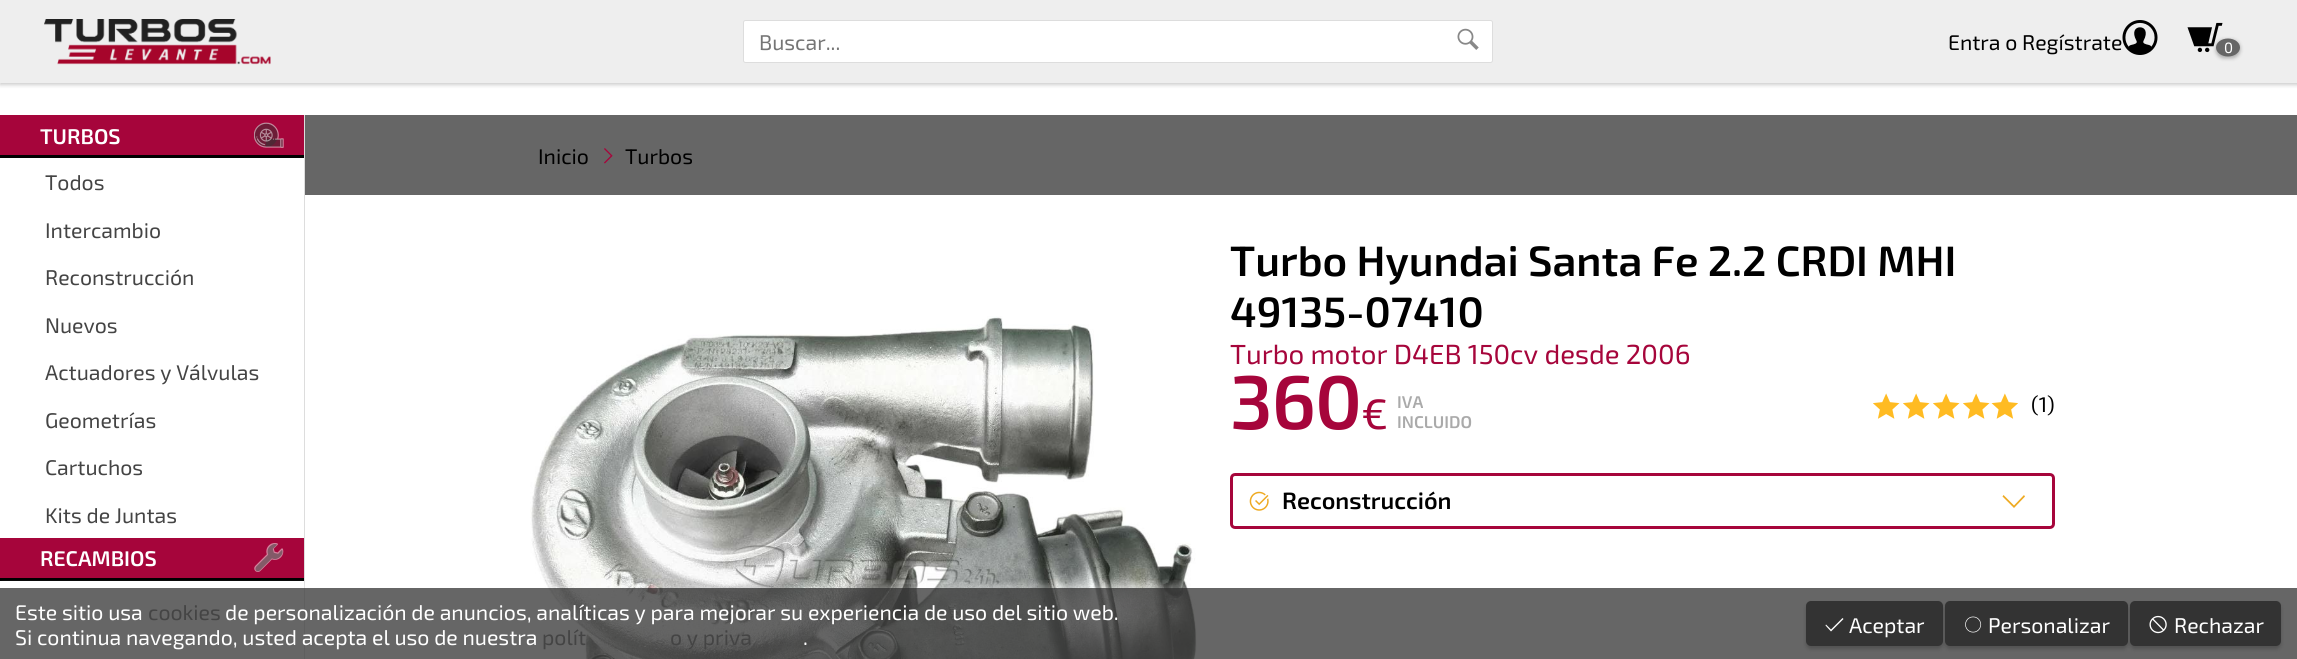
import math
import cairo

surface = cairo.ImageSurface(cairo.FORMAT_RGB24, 2297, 659)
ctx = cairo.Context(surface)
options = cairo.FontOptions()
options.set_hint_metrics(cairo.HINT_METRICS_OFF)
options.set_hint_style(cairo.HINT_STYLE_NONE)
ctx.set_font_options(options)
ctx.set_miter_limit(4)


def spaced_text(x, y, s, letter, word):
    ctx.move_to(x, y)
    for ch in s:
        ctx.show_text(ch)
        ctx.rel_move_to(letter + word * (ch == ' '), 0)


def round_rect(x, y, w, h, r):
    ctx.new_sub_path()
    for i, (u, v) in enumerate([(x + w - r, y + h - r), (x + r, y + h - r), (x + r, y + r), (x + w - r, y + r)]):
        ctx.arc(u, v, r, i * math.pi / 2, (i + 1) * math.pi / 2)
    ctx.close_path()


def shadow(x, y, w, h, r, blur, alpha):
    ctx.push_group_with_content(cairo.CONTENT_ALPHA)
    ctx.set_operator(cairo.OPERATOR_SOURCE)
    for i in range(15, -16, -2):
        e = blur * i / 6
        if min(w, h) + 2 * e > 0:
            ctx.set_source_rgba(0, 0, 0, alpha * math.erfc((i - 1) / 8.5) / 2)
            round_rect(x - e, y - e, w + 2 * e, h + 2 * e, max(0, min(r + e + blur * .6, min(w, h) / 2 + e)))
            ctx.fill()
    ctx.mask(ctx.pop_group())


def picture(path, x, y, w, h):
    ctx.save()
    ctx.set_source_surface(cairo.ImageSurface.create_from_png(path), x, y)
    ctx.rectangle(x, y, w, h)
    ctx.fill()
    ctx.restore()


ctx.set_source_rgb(1, 1, 1)
ctx.paint()
ctx.set_source_rgb(0, 0, 0)
shadow(0, 3, 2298, 82, 0, 2, 0.2)
ctx.set_source_rgb(0.933, 0.933, 0.933)
ctx.rectangle(0, 0, 2297, 83)
ctx.fill()
picture("img1.png", 44, 19, 227, 46)
ctx.set_source_rgb(1, 1, 1)
round_rect(743.5, 20.5, 749, 42, 2)
ctx.fill_preserve()
ctx.set_source_rgb(0.867, 0.867, 0.867)
ctx.set_line_width(1)
ctx.stroke()
ctx.select_font_face("Exo 2")
ctx.set_font_size(21.25)
ctx.set_source_rgb(0.459, 0.459, 0.459)
ctx.move_to(759, 50)
ctx.show_text("Buscar...")
picture("img2.png", 1457, 28, 22, 22)
ctx.set_source_rgb(0, 0, 0)
ctx.move_to(1948, 50)
ctx.show_text("Entra o Regístrate")
picture("img3.png", 2122, 20, 36, 35)
picture("img4.png", 2187, 22, 36, 31)
ctx.set_source_rgb(0, 0, 0)
shadow(2216, 40, 24, 18, 9, 2, 0.3)
ctx.set_source_rgb(0.4, 0.4, 0.4)
ctx.new_path()
ctx.move_to(2228, 38.5)
ctx.curve_to(2234.5, 38.5, 2240, 42.5, 2240, 47.5)
ctx.curve_to(2240, 52.5, 2234.5, 56.5, 2228, 56.5)
ctx.curve_to(2221.5, 56.5, 2216, 52.5, 2216, 47.5)
ctx.curve_to(2216, 42.5, 2221.5, 38.5, 2228, 38.5)
ctx.close_path()
ctx.fill()
ctx.set_font_size(15)
ctx.set_source_rgb(1, 1, 1)
ctx.move_to(2224, 53)
ctx.show_text("0")
ctx.set_source_rgb(0.867, 0.867, 0.867)
ctx.rectangle(304, 115, 1, 544)
ctx.fill()
ctx.set_source_rgb(0.651, 0.02, 0.231)
ctx.rectangle(0, 115, 304, 40)
ctx.fill()
ctx.set_source_rgb(0, 0, 0)
ctx.rectangle(0, 155, 304, 3)
ctx.fill()
ctx.select_font_face("Exo 2 SemiBold")
ctx.set_font_size(21.25)
ctx.set_source_rgb(1, 1, 1)
ctx.move_to(40, 144)
ctx.show_text("TURBOS")
picture("img5.png", 254, 122, 30, 26)
ctx.select_font_face("Exo 2")
ctx.set_source_rgb(0.267, 0.267, 0.267)
ctx.move_to(45, 190)
ctx.show_text("Todos")
ctx.move_to(45, 238)
ctx.show_text("Intercambio")
ctx.move_to(45, 285)
ctx.show_text("Reconstrucción")
ctx.move_to(45, 333)
ctx.show_text("Nuevos")
ctx.move_to(45, 380)
ctx.show_text("Actuadores y Válvulas")
ctx.move_to(45, 428)
ctx.show_text("Geometrías")
ctx.move_to(45, 475)
ctx.show_text("Cartuchos")
ctx.move_to(45, 523)
ctx.show_text("Kits de Juntas")
ctx.set_source_rgb(0.651, 0.02, 0.231)
ctx.rectangle(0, 538, 304, 40)
ctx.fill()
ctx.set_source_rgb(0, 0, 0)
ctx.rectangle(0, 578, 304, 3)
ctx.fill()
ctx.select_font_face("Exo 2 SemiBold")
ctx.set_source_rgb(1, 1, 1)
ctx.move_to(40, 566)
ctx.show_text("RECAMBIOS")
picture("img6.png", 254, 543, 30, 29)
ctx.set_source_rgb(0.4, 0.4, 0.4)
ctx.rectangle(305, 115, 1992, 80)
ctx.fill()
ctx.select_font_face("Exo 2")
ctx.set_source_rgb(0, 0, 0)
ctx.move_to(538, 164)
ctx.show_text("Inicio")
picture("img7.png", 604, 148, 9, 16)
ctx.move_to(625, 164)
ctx.show_text("Turbos")
picture("img8.png", 530, 316, 667, 343)
ctx.select_font_face("Exo 2 SemiBold")
ctx.set_font_size(42.5)
ctx.move_to(1230, 276)
ctx.show_text("Turbo Hyundai Santa Fe 2.2 CRDI MHI")
ctx.move_to(1230, 327)
ctx.show_text("49135-07410")
ctx.select_font_face("Exo 2")
ctx.set_font_size(27.6)
ctx.set_source_rgb(0.651, 0.02, 0.231)
ctx.move_to(1230, 364)
ctx.show_text("Turbo motor D4EB 150cv desde 2006")
ctx.select_font_face("Exo 2 SemiBold")
ctx.set_font_size(76)
spaced_text(1230, 429, "360", -1, 0)
ctx.select_font_face("Exo 2")
ctx.set_font_size(42.5)
spaced_text(1361, 429, "€", -1, 0)
ctx.select_font_face("Exo 2 SemiBold")
ctx.set_font_size(17)
ctx.set_source_rgb(0.667, 0.667, 0.667)
ctx.move_to(1397, 408)
ctx.show_text("IVA")
ctx.move_to(1397, 428)
ctx.show_text("INCLUIDO")
picture("img9.png", 1873, 393, 27, 26)
picture("img9.png", 1903, 393, 27, 26)
picture("img9.png", 1933, 393, 27, 26)
picture("img9.png", 1963, 393, 27, 26)
picture("img10.png", 1991, 393, 27, 26)
ctx.select_font_face("Exo 2")
ctx.set_font_size(21.25)
ctx.set_source_rgb(0, 0, 0)
ctx.move_to(2031, 412)
ctx.show_text("(1)")
ctx.set_source_rgb(0.933, 0.667, 0.133)
ctx.new_path()
ctx.move_to(2003.5, 495)
ctx.line_to(2002.5, 496.5)
ctx.line_to(2014, 508)
ctx.line_to(2025, 496.5)
ctx.line_to(2024, 495)
ctx.line_to(2014, 505.5)
ctx.close_path()
ctx.fill()
round_rect(1231.5, 474.5, 822, 53, 3.5)
ctx.set_source_rgb(0.651, 0.02, 0.231)
ctx.set_line_width(3)
ctx.stroke()
picture("img11.png", 1249, 491, 20, 20)
ctx.select_font_face("Exo 2 SemiBold")
ctx.set_font_size(23.5)
ctx.set_source_rgb(0, 0, 0)
ctx.move_to(1282, 509)
ctx.show_text("Reconstrucción")
ctx.save()
ctx.rectangle(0, 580, 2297, 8)
ctx.clip()
ctx.set_source_rgb(1, 1, 1)
shadow(3, 584, 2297, 72, 0, 3, 0.3)
ctx.restore()
ctx.set_source_rgba(0.251, 0.251, 0.251, 0.8)
ctx.rectangle(0, 588, 2297, 71)
ctx.fill()
ctx.select_font_face("Exo 2")
ctx.set_font_size(21.25)
ctx.set_source_rgb(1, 1, 1)
ctx.move_to(15, 620)
ctx.show_text("Este sitio usa")
ctx.set_source_rgb(0.267, 0.267, 0.267)
ctx.move_to(148, 620)
ctx.show_text("cookies")
ctx.set_source_rgb(1, 1, 1)
ctx.move_to(225, 620)
ctx.show_text("de personalización de anuncios, analíticas y para mejorar su experiencia de uso del sitio web.")
ctx.move_to(15, 645)
ctx.show_text("Si continua navegando, usted acepta el uso de nuestra")
ctx.set_source_rgb(0.267, 0.267, 0.267)
ctx.move_to(542, 645)
ctx.show_text("polít")
ctx.move_to(670, 645)
ctx.show_text("o y priva")
ctx.set_source_rgb(1, 1, 1)
ctx.move_to(803, 645)
ctx.show_text(".")
ctx.set_source_rgb(0, 0, 0)
shadow(1806, 604, 137, 45, 5, 2, 0.2)
ctx.set_source_rgb(0.2, 0.2, 0.2)
round_rect(1806, 601, 137, 45, 5)
ctx.fill()
ctx.set_source_rgb(1, 1, 1)
ctx.new_path()
ctx.move_to(1842.5, 618)
ctx.line_to(1831, 629.5)
ctx.line_to(1826, 624.5)
ctx.line_to(1825.5, 625.5)
ctx.line_to(1831, 631.5)
ctx.line_to(1843.5, 619)
ctx.close_path()
ctx.fill()
ctx.move_to(1849, 633)
ctx.show_text("Aceptar")
ctx.set_source_rgb(0, 0, 0)
shadow(1945, 604, 183, 45, 5, 2, 0.2)
ctx.set_source_rgb(0.2, 0.2, 0.2)
round_rect(1945, 601, 183, 45, 5)
ctx.fill()
picture("img12.png", 1965, 616, 17, 17)
ctx.set_source_rgb(1, 1, 1)
ctx.move_to(1988, 633)
ctx.show_text("Personalizar")
ctx.set_source_rgb(0, 0, 0)
shadow(2130, 604, 151, 45, 5, 2, 0.2)
ctx.set_source_rgb(0.2, 0.2, 0.2)
round_rect(2130, 601, 151, 45, 5)
ctx.fill()
picture("img13.png", 2149, 615, 18, 19)
ctx.set_source_rgb(1, 1, 1)
ctx.move_to(2174, 633)
ctx.show_text("Rechazar")
surface.write_to_png("page.png")
